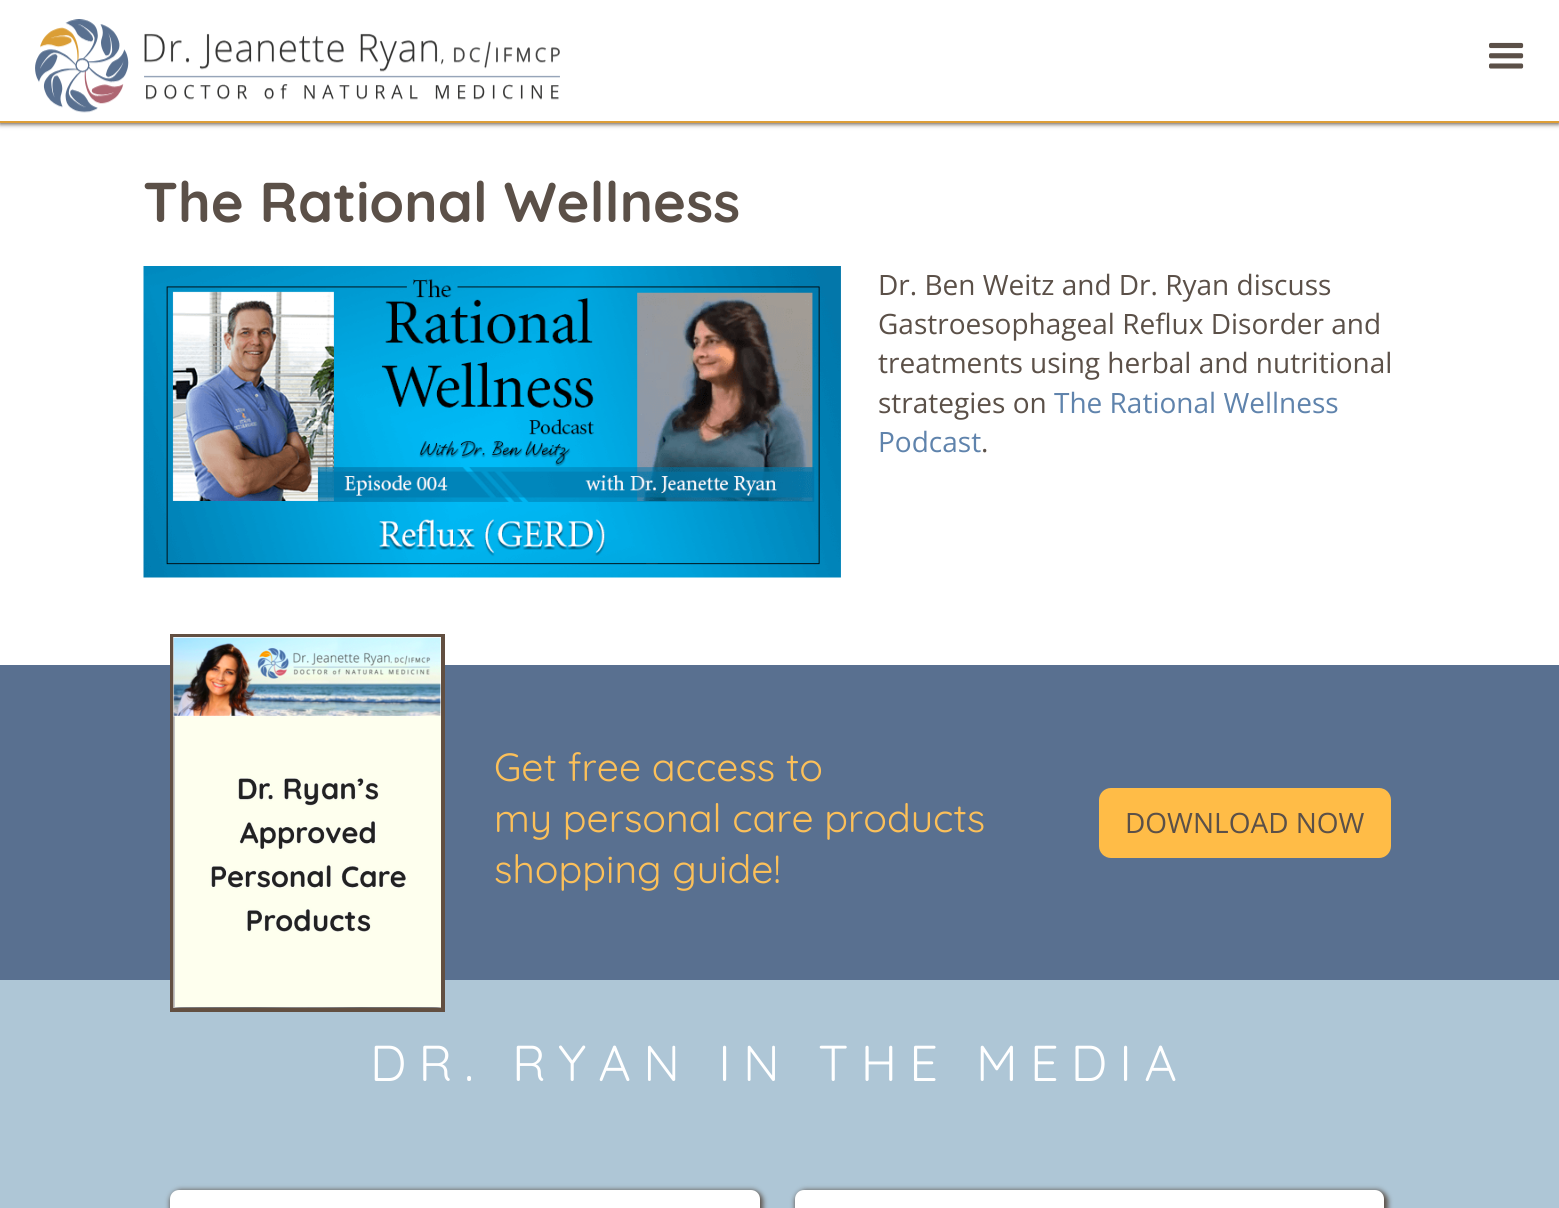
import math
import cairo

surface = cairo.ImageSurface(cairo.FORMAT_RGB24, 1559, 1208)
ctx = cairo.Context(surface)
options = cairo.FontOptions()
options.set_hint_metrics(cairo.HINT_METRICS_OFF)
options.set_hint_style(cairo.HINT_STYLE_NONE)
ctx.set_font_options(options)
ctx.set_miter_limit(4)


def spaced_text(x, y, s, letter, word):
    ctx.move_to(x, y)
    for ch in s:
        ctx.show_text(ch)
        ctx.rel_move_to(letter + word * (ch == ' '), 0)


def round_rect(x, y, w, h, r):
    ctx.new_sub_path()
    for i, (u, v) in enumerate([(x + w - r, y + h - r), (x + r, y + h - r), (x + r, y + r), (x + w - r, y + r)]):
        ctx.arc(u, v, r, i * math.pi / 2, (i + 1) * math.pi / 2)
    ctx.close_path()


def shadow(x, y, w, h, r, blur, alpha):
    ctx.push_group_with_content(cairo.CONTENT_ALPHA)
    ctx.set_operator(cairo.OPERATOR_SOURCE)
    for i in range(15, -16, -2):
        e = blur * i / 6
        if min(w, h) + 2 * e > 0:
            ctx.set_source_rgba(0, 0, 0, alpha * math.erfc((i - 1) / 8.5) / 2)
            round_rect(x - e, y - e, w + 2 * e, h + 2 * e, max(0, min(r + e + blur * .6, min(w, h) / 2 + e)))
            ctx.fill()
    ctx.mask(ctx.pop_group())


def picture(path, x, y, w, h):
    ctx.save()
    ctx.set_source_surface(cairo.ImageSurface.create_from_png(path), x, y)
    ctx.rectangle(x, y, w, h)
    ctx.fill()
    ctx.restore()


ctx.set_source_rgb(1, 1, 1)
ctx.paint()
ctx.set_source_rgb(0.357, 0.314, 0.282)
shadow(0, 2, 1559, 122, 0, 2.5, 1)
ctx.set_source_rgb(1, 1, 1)
ctx.rectangle(0, 0, 1559, 121)
ctx.fill()
ctx.set_source_rgb(0.867, 0.62, 0.216)
ctx.rectangle(0, 121, 1559, 2)
ctx.fill()
picture("img1.png", 35, 19, 525, 94)
picture("img2.png", 1489, 42, 35, 27)
ctx.select_font_face("Quicksand", cairo.FONT_SLANT_NORMAL, cairo.FONT_WEIGHT_BOLD)
ctx.set_font_size(56)
ctx.set_source_rgb(0.357, 0.314, 0.282)
ctx.move_to(143, 222)
ctx.show_text("The Rational Wellness")
picture("img3.png", 143, 266, 698, 312)
ctx.select_font_face("Open Sans")
ctx.set_font_size(28)
ctx.move_to(878, 295)
ctx.show_text("Dr. Ben Weitz and Dr. Ryan discuss")
ctx.move_to(878, 334)
ctx.show_text("Gastroesophageal Reflux Disorder and")
ctx.move_to(878, 373)
ctx.show_text("treatments using herbal and nutritional")
ctx.move_to(878, 413)
ctx.show_text("strategies on")
ctx.set_source_rgb(0.373, 0.514, 0.675)
ctx.move_to(1054, 413)
ctx.show_text("The Rational Wellness")
ctx.move_to(878, 452)
ctx.show_text("Podcast")
ctx.set_source_rgb(0.357, 0.314, 0.282)
ctx.move_to(981, 452)
ctx.show_text(".")
ctx.set_source_rgb(0.349, 0.439, 0.565)
ctx.rectangle(0, 665, 1559, 315)
ctx.fill()
ctx.set_source_rgb(0.682, 0.776, 0.839)
ctx.rectangle(0, 980, 1559, 228)
ctx.fill()
ctx.rectangle(172, 636, 271, 374)
ctx.set_source_rgb(0.384, 0.31, 0.255)
ctx.set_line_width(4)
ctx.stroke()
picture("img4.png", 173, 637, 268, 371)
ctx.select_font_face("Quicksand")
ctx.set_font_size(39.25)
ctx.set_source_rgb(0.988, 0.753, 0.349)
ctx.move_to(494, 781)
ctx.show_text("Get free access to")
ctx.move_to(494, 832)
ctx.show_text("my personal care products")
ctx.move_to(494, 883)
ctx.show_text("shopping guide!")
ctx.set_source_rgb(1, 0.737, 0.278)
round_rect(1099, 788, 292, 70, 12)
ctx.fill()
ctx.select_font_face("Open Sans")
ctx.set_font_size(28)
ctx.set_source_rgb(0.357, 0.314, 0.282)
ctx.move_to(1125, 833)
ctx.show_text("DOWNLOAD NOW")
ctx.select_font_face("Quicksand")
ctx.set_font_size(50.4)
ctx.set_source_rgb(1, 1, 1)
spaced_text(370, 1081, "DR. RYAN IN THE MEDIA", 12.25, 0)
ctx.set_source_rgb(0.357, 0.314, 0.282)
shadow(170, 1190, 593, 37, 11, 2.5, 1)
ctx.set_source_rgb(1, 1, 1)
round_rect(170, 1190, 590, 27, 9)
ctx.fill()
ctx.set_source_rgb(0.357, 0.314, 0.282)
shadow(795, 1190, 593, 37, 11, 2.5, 1)
ctx.set_source_rgb(1, 1, 1)
round_rect(795, 1190, 589, 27, 9)
ctx.fill()
surface.write_to_png("page.png")
